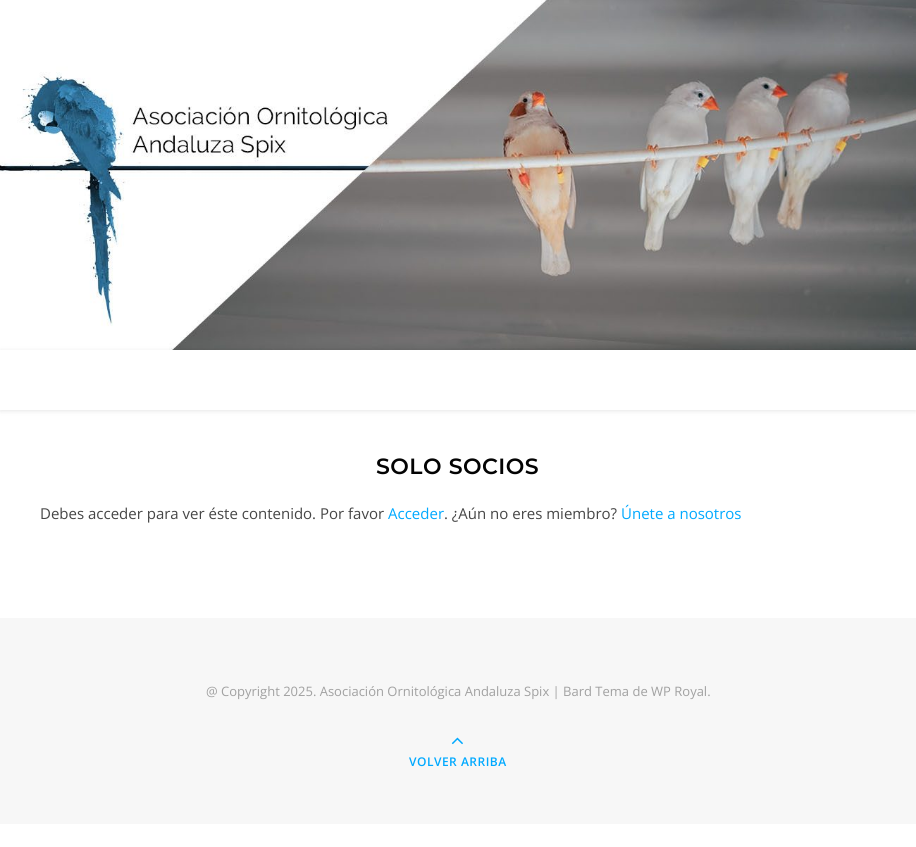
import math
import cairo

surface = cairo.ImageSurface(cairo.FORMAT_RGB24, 916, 847)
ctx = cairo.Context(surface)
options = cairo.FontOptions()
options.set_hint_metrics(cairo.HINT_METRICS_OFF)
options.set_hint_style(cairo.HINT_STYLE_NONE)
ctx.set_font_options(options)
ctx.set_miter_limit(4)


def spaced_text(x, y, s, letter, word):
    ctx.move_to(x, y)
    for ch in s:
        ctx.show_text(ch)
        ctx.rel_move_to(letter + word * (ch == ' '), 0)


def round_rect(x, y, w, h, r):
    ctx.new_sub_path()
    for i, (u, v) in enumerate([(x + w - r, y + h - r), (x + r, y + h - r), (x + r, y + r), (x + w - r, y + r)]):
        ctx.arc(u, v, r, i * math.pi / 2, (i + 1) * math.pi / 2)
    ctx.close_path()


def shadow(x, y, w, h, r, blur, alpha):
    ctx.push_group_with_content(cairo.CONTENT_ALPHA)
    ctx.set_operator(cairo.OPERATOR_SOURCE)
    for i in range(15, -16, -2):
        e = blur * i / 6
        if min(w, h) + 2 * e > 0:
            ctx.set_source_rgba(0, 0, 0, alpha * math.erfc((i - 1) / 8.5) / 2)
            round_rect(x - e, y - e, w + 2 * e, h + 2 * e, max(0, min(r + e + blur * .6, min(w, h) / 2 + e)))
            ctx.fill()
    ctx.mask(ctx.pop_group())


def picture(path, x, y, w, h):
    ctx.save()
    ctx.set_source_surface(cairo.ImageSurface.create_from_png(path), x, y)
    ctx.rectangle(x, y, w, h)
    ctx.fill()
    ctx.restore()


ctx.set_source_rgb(1, 1, 1)
ctx.paint()
picture("img1.png", 0, 0, 916, 350)
ctx.save()
ctx.set_fill_rule(cairo.FILL_RULE_EVEN_ODD)
ctx.new_path()
ctx.move_to(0, 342)
ctx.line_to(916, 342)
ctx.line_to(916, 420)
ctx.line_to(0, 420)
ctx.close_path()
ctx.move_to(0, 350)
ctx.line_to(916, 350)
ctx.line_to(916, 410)
ctx.line_to(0, 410)
ctx.close_path()
ctx.clip()
ctx.set_source_rgb(0, 0, 0)
shadow(0, 351, 916, 60, 0, 2.5, 0.1)
ctx.restore()
ctx.select_font_face("Montserrat SemiBold")
ctx.set_font_size(22)
ctx.set_source_rgb(0.012, 0.012, 0.012)
spaced_text(376, 474, "SOLO SOCIOS", 0.5, 0)
ctx.select_font_face("Open Sans")
ctx.set_font_size(15)
ctx.set_source_rgb(0.275, 0.275, 0.275)
ctx.move_to(40, 519)
ctx.show_text("Debes acceder para ver éste contenido. Por favor")
ctx.set_source_rgb(0, 0.663, 1)
ctx.move_to(388, 519)
ctx.show_text("Acceder")
ctx.set_source_rgb(0.275, 0.275, 0.275)
ctx.move_to(444, 519)
ctx.show_text(". ¿Aún no eres miembro?")
ctx.set_source_rgb(0, 0.663, 1)
ctx.move_to(621, 519)
ctx.show_text("Únete a nosotros")
ctx.set_source_rgb(0.965, 0.965, 0.965)
ctx.rectangle(0, 618, 916, 206)
ctx.fill()
ctx.set_font_size(13)
ctx.set_source_rgb(0.631, 0.631, 0.631)
ctx.move_to(206, 696)
ctx.show_text("@ Copyright 2025. Asociación Ornitológica Andaluza Spix | Bard Tema de WP Royal.")
picture("img2.png", 451, 737, 12, 8)
ctx.select_font_face("Open Sans SemiBold")
ctx.set_font_size(12)
ctx.set_source_rgb(0, 0.663, 1)
spaced_text(409, 766, "VOLVER ARRIBA", 0.5, 0)
surface.write_to_png("page.png")
